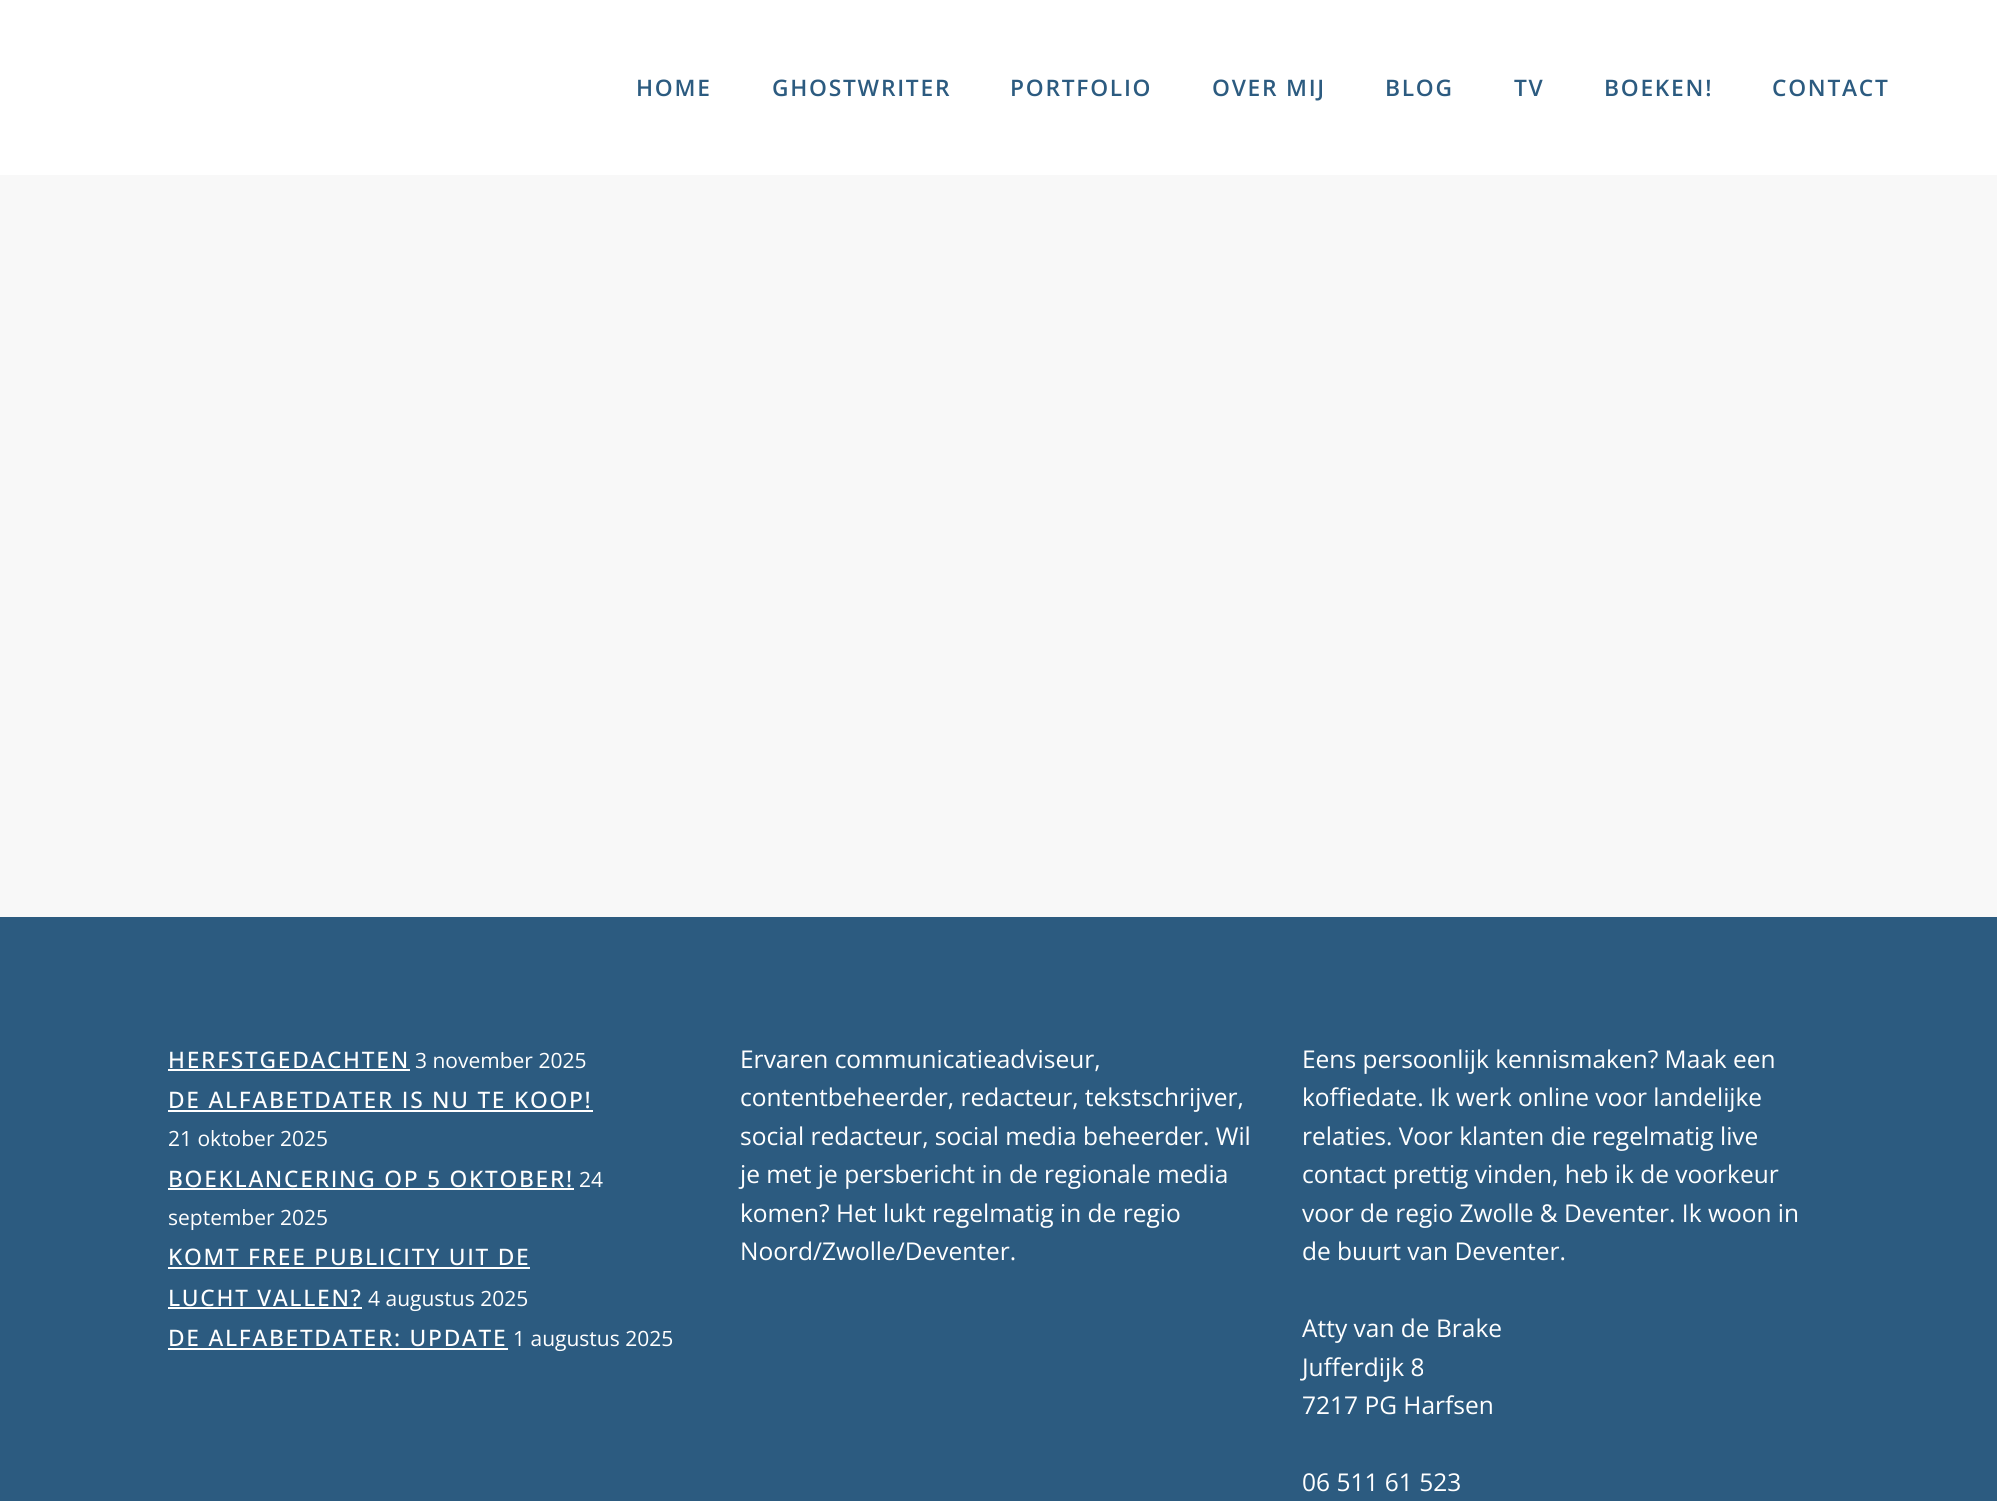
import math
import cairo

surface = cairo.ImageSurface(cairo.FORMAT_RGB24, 1997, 1501)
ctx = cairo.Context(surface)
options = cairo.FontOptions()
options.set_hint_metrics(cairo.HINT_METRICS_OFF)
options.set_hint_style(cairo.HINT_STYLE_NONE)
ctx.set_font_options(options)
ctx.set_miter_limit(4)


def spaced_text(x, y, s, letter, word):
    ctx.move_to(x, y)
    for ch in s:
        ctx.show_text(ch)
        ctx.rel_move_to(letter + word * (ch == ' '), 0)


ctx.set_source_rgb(0.969, 0.969, 0.969)
ctx.paint()
ctx.set_source_rgb(1, 1, 1)
ctx.rectangle(0, 0, 1997, 175)
ctx.fill()
ctx.select_font_face("Open Sans SemiBold")
ctx.set_font_size(22.75)
ctx.set_source_rgb(0.173, 0.357, 0.502)
spaced_text(636, 96, "HOME", 1.75, 0)
spaced_text(772, 96, "GHOSTWRITER", 1.75, 0)
spaced_text(1010, 96, "PORTFOLIO", 1.75, 0)
spaced_text(1212, 96, "OVER MIJ", 1.75, 0)
spaced_text(1385, 96, "BLOG", 1.75, 0)
spaced_text(1514, 96, "TV", 1.75, 0)
spaced_text(1604, 96, "BOEKEN!", 1.75, 0)
spaced_text(1772, 96, "CONTACT", 1.75, 0)
ctx.rectangle(0, 917, 1997, 584)
ctx.fill()
ctx.select_font_face("Open Sans Medium")
ctx.set_source_rgb(1, 1, 1)
spaced_text(168, 1068, "HERFSTGEDACHTEN", 1.75, 0)
ctx.rectangle(168, 1069, 242, 2)
ctx.fill()
ctx.select_font_face("Open Sans")
ctx.set_font_size(21)
ctx.move_to(415, 1068)
ctx.show_text("3 november 2025")
ctx.select_font_face("Open Sans Medium")
ctx.set_font_size(22.75)
spaced_text(168, 1108, "DE ALFABETDATER IS NU TE KOOP!", 1.75, 0)
ctx.rectangle(168, 1110, 425, 2)
ctx.fill()
ctx.select_font_face("Open Sans")
ctx.set_font_size(21)
ctx.move_to(168, 1146)
ctx.show_text("21 oktober 2025")
ctx.select_font_face("Open Sans Medium")
ctx.set_font_size(22.75)
spaced_text(168, 1187, "BOEKLANCERING OP 5 OKTOBER!", 1.75, 0)
ctx.rectangle(168, 1188, 406, 2)
ctx.fill()
ctx.select_font_face("Open Sans")
ctx.set_font_size(21)
ctx.move_to(579, 1187)
ctx.show_text("24")
ctx.move_to(168, 1225)
ctx.show_text("september 2025")
ctx.select_font_face("Open Sans Medium")
ctx.set_font_size(22.75)
spaced_text(168, 1265, "KOMT FREE PUBLICITY UIT DE", 1.75, 0)
ctx.rectangle(168, 1267, 362, 2)
ctx.fill()
spaced_text(168, 1306, "LUCHT VALLEN?", 1.75, 0)
ctx.rectangle(168, 1307, 194, 2)
ctx.fill()
ctx.select_font_face("Open Sans")
ctx.set_font_size(21)
ctx.move_to(368, 1306)
ctx.show_text("4 augustus 2025")
ctx.select_font_face("Open Sans Medium")
ctx.set_font_size(22.75)
spaced_text(168, 1346, "DE ALFABETDATER: UPDATE", 1.75, 0)
ctx.rectangle(168, 1348, 340, 2)
ctx.fill()
ctx.select_font_face("Open Sans")
ctx.set_font_size(21)
ctx.move_to(513, 1346)
ctx.show_text("1 augustus 2025")
ctx.set_font_size(24.5)
ctx.move_to(740, 1068)
ctx.show_text("Ervaren communicatieadviseur,")
ctx.move_to(740, 1106)
ctx.show_text("contentbeheerder, redacteur, tekstschrijver,")
ctx.move_to(740, 1145)
ctx.show_text("social redacteur, social media beheerder. Wil")
ctx.move_to(740, 1183)
ctx.show_text("je met je persbericht in de regionale media")
ctx.move_to(740, 1222)
ctx.show_text("komen? Het lukt regelmatig in de regio")
ctx.move_to(740, 1260)
ctx.show_text("Noord/Zwolle/Deventer.")
ctx.move_to(1302, 1068)
ctx.show_text("Eens persoonlijk kennismaken? Maak een")
ctx.move_to(1302, 1106)
ctx.show_text("koffiedate. Ik werk online voor landelijke")
ctx.move_to(1302, 1145)
ctx.show_text("relaties. Voor klanten die regelmatig live")
ctx.move_to(1302, 1183)
ctx.show_text("contact prettig vinden, heb ik de voorkeur")
ctx.move_to(1302, 1222)
ctx.show_text("voor de regio Zwolle & Deventer. Ik woon in")
ctx.move_to(1302, 1260)
ctx.show_text("de buurt van Deventer.")
ctx.move_to(1302, 1337)
ctx.show_text("Atty van de Brake")
ctx.move_to(1302, 1376)
ctx.show_text("Jufferdijk 8")
ctx.move_to(1302, 1414)
ctx.show_text("7217 PG Harfsen")
ctx.move_to(1302, 1491)
ctx.show_text("06 511 61 523")
surface.write_to_png("page.png")
